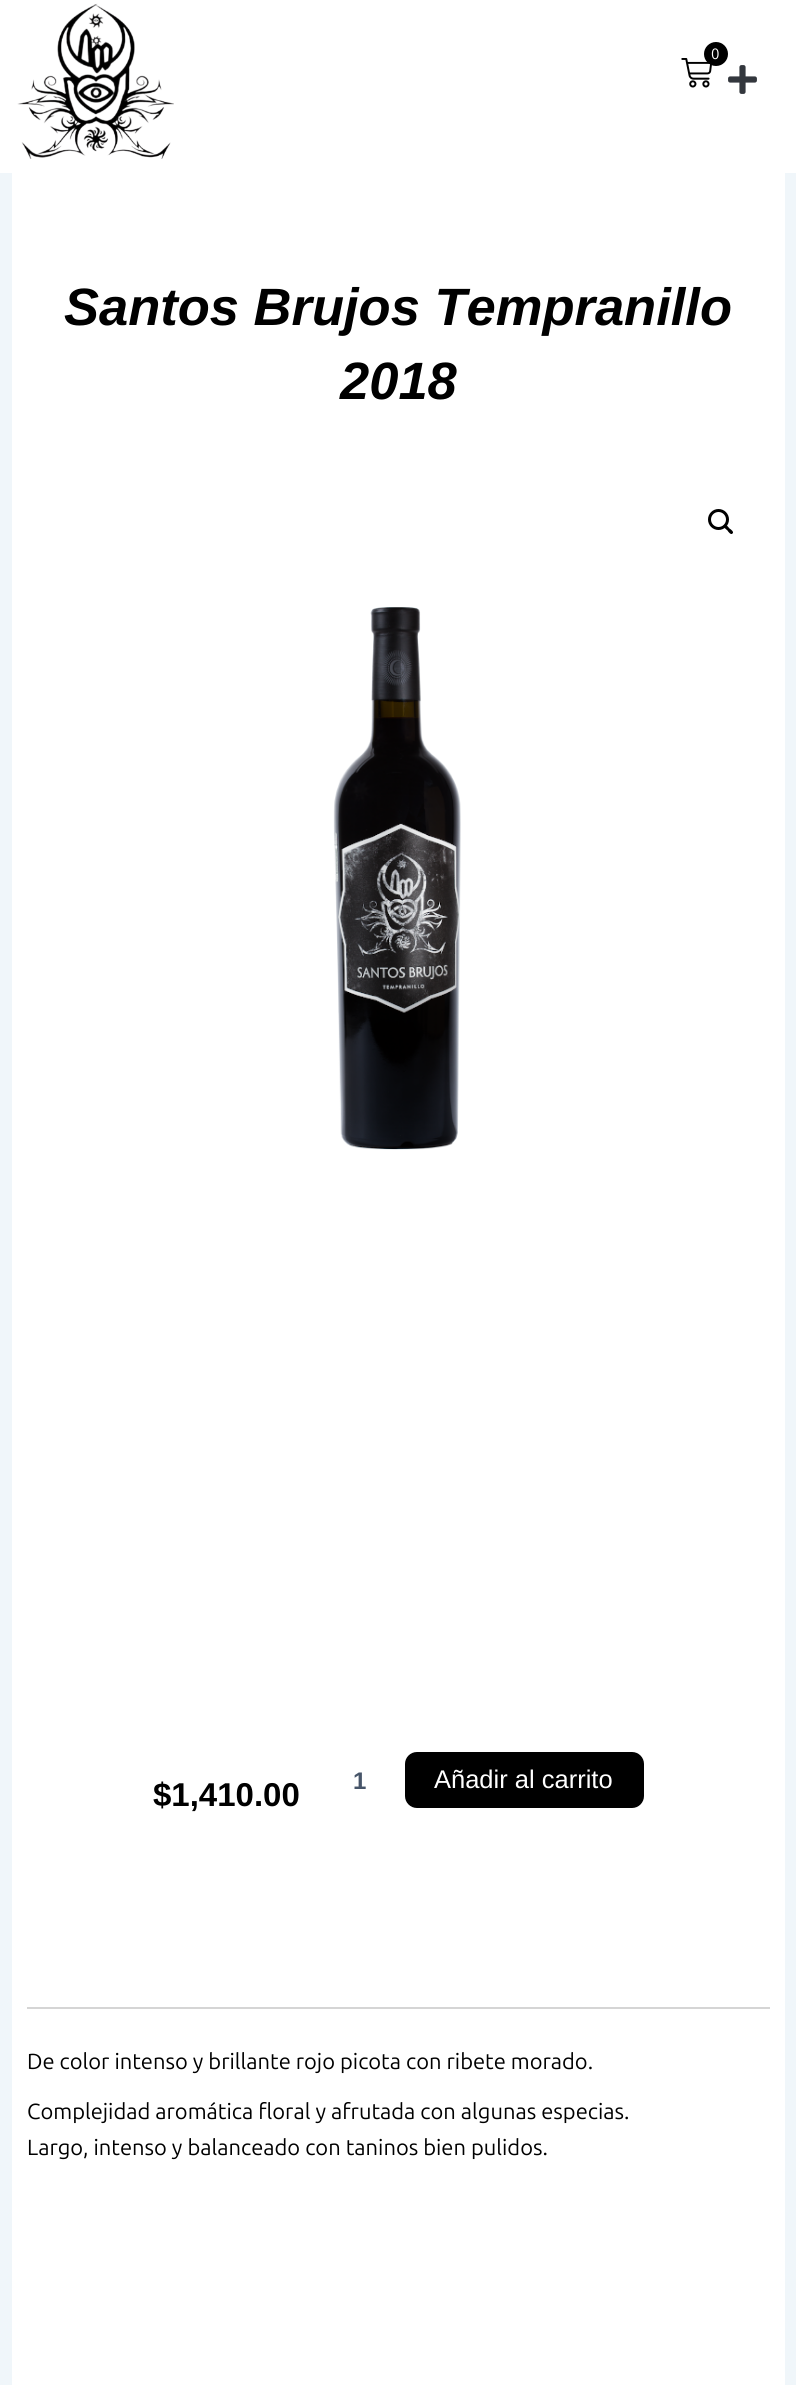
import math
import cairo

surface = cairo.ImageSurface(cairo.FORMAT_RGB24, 796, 2385)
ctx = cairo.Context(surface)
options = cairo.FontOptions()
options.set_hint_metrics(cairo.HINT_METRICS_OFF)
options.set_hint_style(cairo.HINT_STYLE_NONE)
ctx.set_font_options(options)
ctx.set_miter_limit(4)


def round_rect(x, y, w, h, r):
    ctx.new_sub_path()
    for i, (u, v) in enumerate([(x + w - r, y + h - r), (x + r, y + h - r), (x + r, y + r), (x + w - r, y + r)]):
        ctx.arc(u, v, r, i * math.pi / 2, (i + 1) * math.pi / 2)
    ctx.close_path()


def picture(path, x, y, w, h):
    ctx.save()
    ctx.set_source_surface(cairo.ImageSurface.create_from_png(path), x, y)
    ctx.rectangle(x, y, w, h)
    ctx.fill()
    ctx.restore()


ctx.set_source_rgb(0.941, 0.961, 0.98)
ctx.paint()
ctx.set_source_rgb(1, 1, 1)
ctx.rectangle(0, 0, 796, 173)
ctx.fill()
picture("img1.png", 17, 3, 157, 156)
picture("img2.png", 681, 58, 31, 30)
ctx.set_source_rgb(0, 0, 0)
ctx.arc(716, 54, 12, 0, 2 * math.pi)
ctx.fill()
ctx.select_font_face("Ubuntu")
ctx.set_font_size(15)
ctx.set_source_rgb(1, 1, 1)
ctx.move_to(711, 59)
ctx.show_text("0")
picture("img3.png", 728, 65, 29, 29)
ctx.rectangle(12, 173, 773, 2212)
ctx.fill()
ctx.select_font_face("Liberation Sans", cairo.FONT_SLANT_ITALIC, cairo.FONT_WEIGHT_BOLD)
ctx.set_font_size(52.5)
ctx.set_source_rgb(0, 0, 0)
ctx.move_to(64, 325)
ctx.show_text("Santos Brujos Tempranillo")
ctx.move_to(340, 399)
ctx.show_text("2018")
ctx.new_path()
ctx.arc(718.5, 519.5, 9, 0, 2 * math.pi)
ctx.set_line_width(3)
ctx.stroke()
ctx.new_path()
ctx.move_to(724, 525)
ctx.curve_to(726, 523.5, 728.5, 527.5, 729.5, 528.5)
ctx.curve_to(730.5, 529, 734.5, 532, 732.5, 533.5)
ctx.curve_to(731, 535.5, 728, 531.5, 727.5, 530.5)
ctx.curve_to(726.5, 529.5, 722.5, 527, 724, 525)
ctx.close_path()
ctx.fill()
picture("img4.png", 333, 607, 128, 543)
ctx.select_font_face("Liberation Sans", cairo.FONT_SLANT_NORMAL, cairo.FONT_WEIGHT_BOLD)
ctx.set_font_size(24)
ctx.set_source_rgb(0.278, 0.333, 0.412)
ctx.move_to(353, 1789)
ctx.show_text("1")
ctx.set_source_rgb(0, 0, 0)
round_rect(405, 1752, 239, 56, 12)
ctx.fill()
ctx.select_font_face("Liberation Sans")
ctx.set_font_size(25.5)
ctx.set_source_rgb(1, 1, 1)
ctx.move_to(434, 1788)
ctx.show_text("Añadir al carrito")
ctx.select_font_face("Liberation Sans", cairo.FONT_SLANT_NORMAL, cairo.FONT_WEIGHT_BOLD)
ctx.set_font_size(33)
ctx.set_source_rgb(0, 0, 0)
ctx.move_to(153, 1806)
ctx.show_text("$1,410.00")
ctx.set_source_rgb(0.835, 0.835, 0.835)
ctx.rectangle(27, 2007, 743, 2)
ctx.fill()
ctx.select_font_face("Ubuntu")
ctx.set_font_size(21.9)
ctx.set_source_rgb(0, 0, 0)
ctx.move_to(27, 2069)
ctx.show_text("De color intenso y brillante rojo picota con ribete morado.")
ctx.move_to(27, 2119)
ctx.show_text("Complejidad aromática floral y afrutada con algunas especias.")
ctx.move_to(27, 2155)
ctx.show_text("Largo, intenso y balanceado con taninos bien pulidos.")
surface.write_to_png("page.png")
